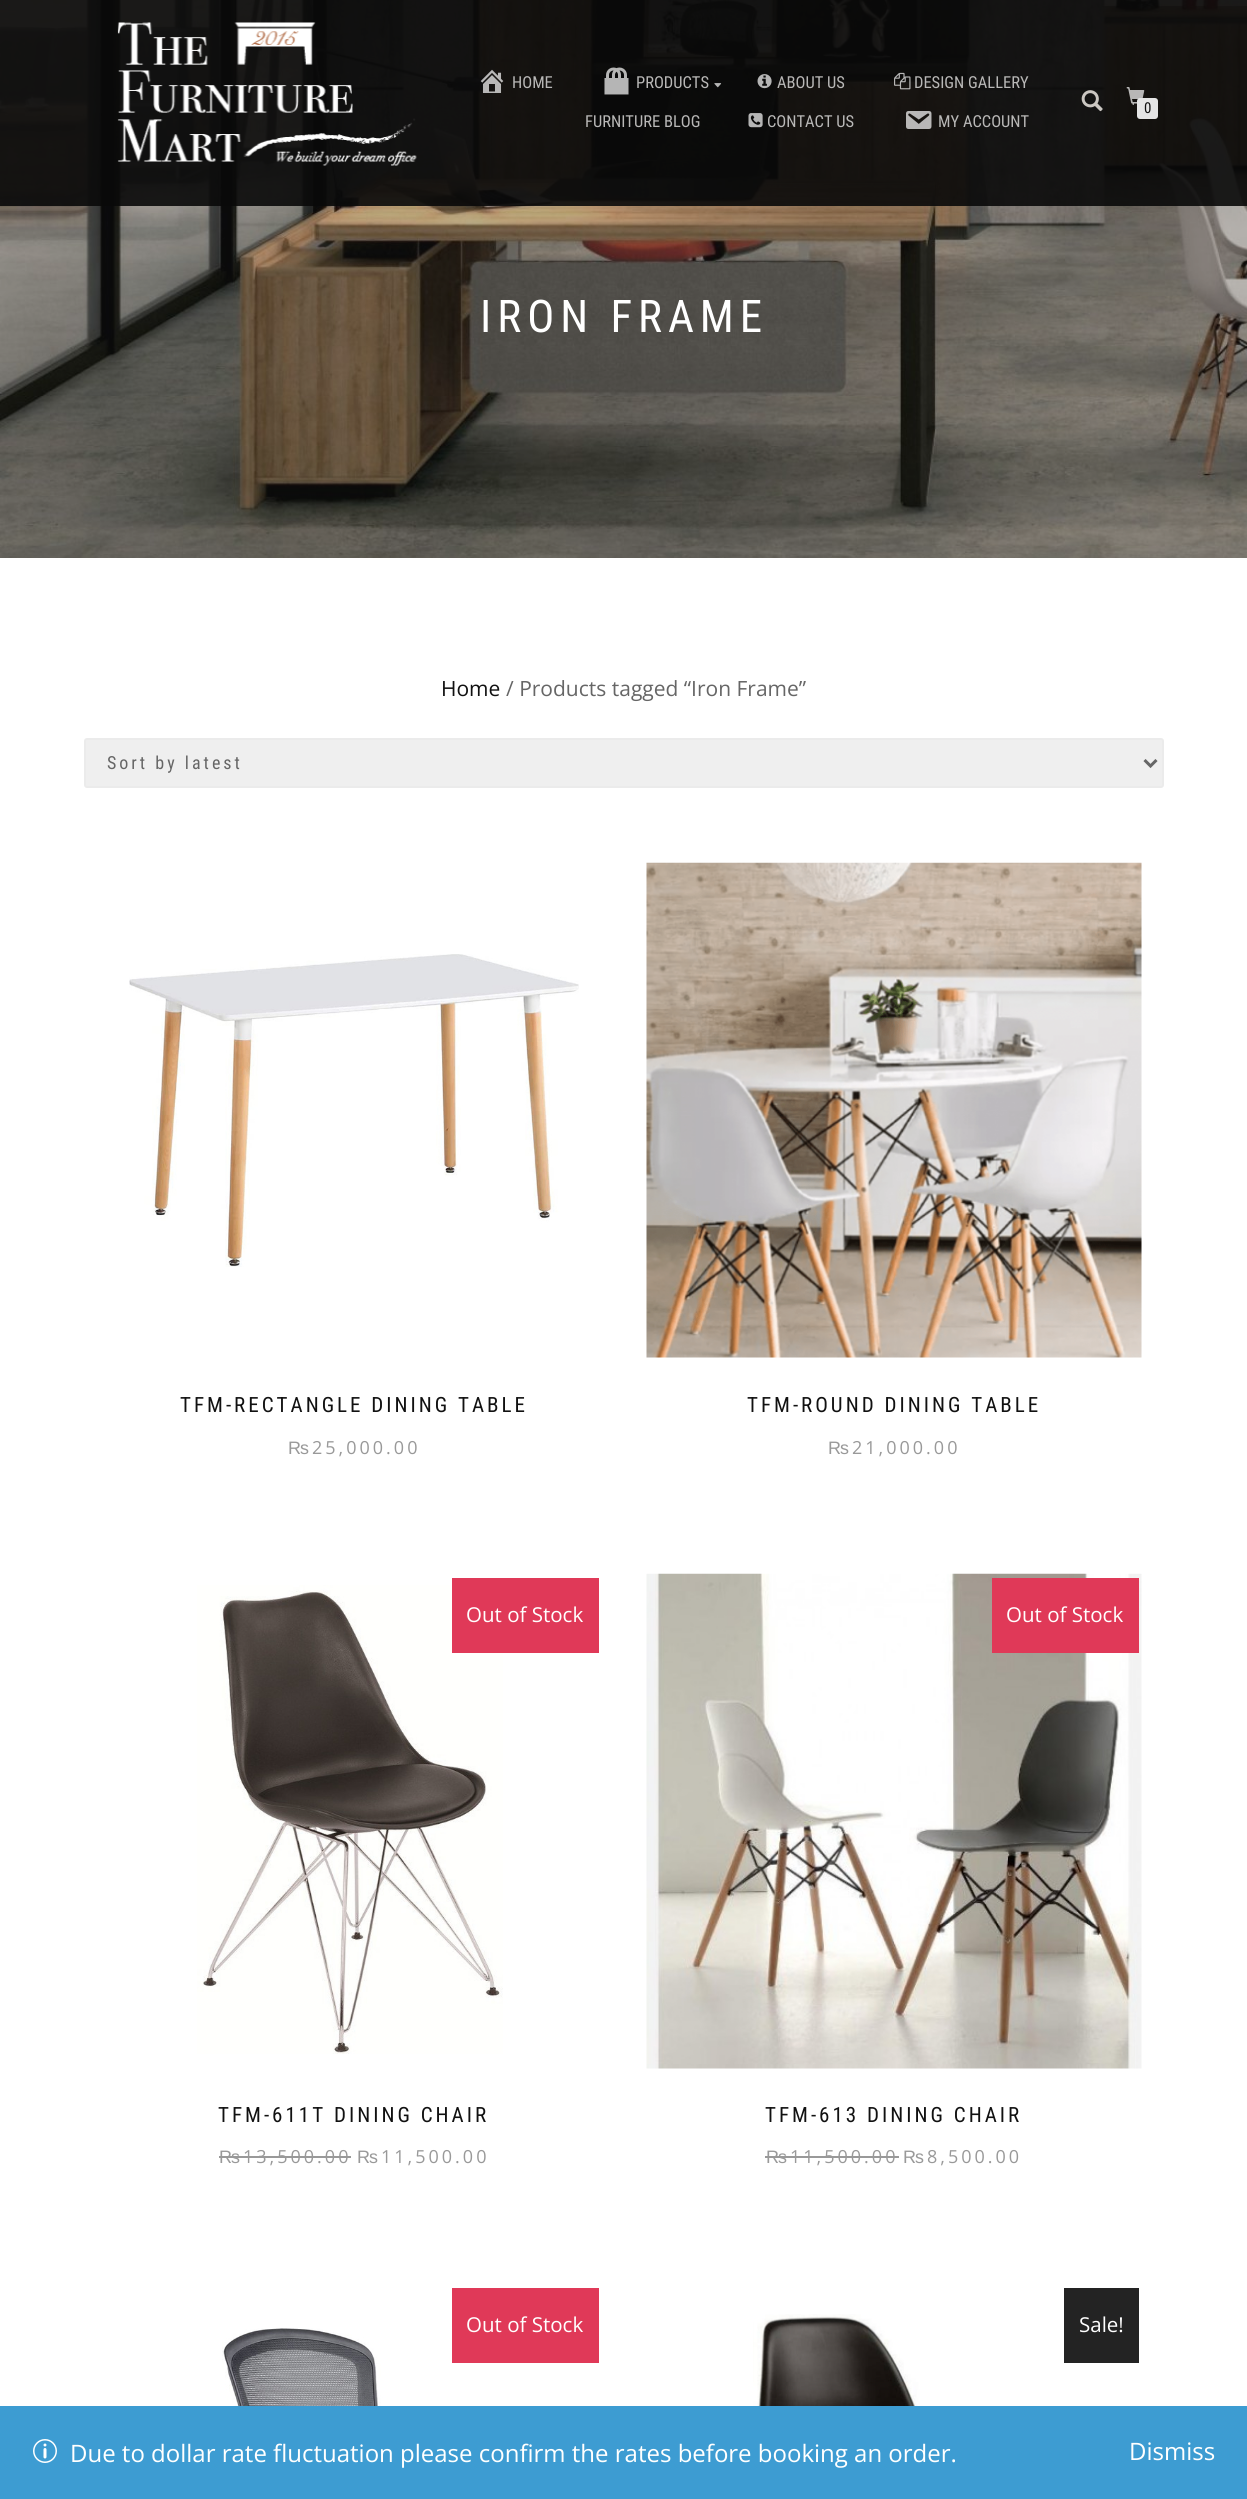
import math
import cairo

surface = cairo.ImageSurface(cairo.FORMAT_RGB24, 1247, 2499)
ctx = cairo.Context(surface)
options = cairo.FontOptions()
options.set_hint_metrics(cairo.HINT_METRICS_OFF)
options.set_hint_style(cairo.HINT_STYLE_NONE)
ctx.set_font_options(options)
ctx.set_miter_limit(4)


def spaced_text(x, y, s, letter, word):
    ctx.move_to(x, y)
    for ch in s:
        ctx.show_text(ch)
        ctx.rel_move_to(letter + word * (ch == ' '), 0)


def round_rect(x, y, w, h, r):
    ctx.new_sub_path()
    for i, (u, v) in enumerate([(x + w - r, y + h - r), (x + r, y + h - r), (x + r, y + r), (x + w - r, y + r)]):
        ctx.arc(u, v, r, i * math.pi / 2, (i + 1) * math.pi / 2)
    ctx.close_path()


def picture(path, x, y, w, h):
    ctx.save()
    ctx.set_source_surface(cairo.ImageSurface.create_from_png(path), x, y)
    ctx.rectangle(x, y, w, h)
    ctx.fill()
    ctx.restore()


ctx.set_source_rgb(1, 1, 1)
ctx.paint()
picture("img11.png", 0, 0, 1247, 558)
ctx.set_source_rgba(0.039, 0.039, 0.039, 0.9)
ctx.rectangle(0, 0, 1247, 206)
ctx.fill()
picture("img1.png", 117, 22, 300, 144)
picture("img2.png", 480, 69, 24, 24)
ctx.select_font_face("Roboto Condensed")
ctx.set_font_size(16.5)
ctx.set_source_rgb(0.725, 0.722, 0.718)
ctx.move_to(512, 88)
ctx.show_text("HOME")
picture("img3.png", 604, 67, 25, 28)
ctx.move_to(636, 88)
ctx.show_text("PRODUCTS")
picture("img4.png", 714, 83, 8, 5)
picture("img5.png", 757, 74, 15, 15)
ctx.move_to(777, 88)
ctx.show_text("ABOUT US")
picture("img6.png", 894, 72, 17, 18)
ctx.move_to(914, 88)
ctx.show_text("DESIGN GALLERY")
ctx.move_to(585, 127)
ctx.show_text("FURNITURE BLOG")
picture("img7.png", 748, 113, 15, 15)
ctx.move_to(767, 127)
ctx.show_text("CONTACT US")
picture("img8.png", 906, 111, 26, 18)
ctx.move_to(938, 127)
ctx.show_text("MY ACCOUNT")
picture("img9.png", 1081, 90, 22, 22)
picture("img10.png", 1126, 87, 19, 18)
ctx.set_source_rgb(0.898, 0.898, 0.898)
round_rect(1137, 98, 21, 21, 3)
ctx.fill()
ctx.set_font_size(15)
ctx.set_source_rgb(0.067, 0.067, 0.067)
ctx.move_to(1144, 113)
ctx.show_text("0")
ctx.set_font_size(45)
ctx.set_source_rgb(1, 1, 1)
spaced_text(480, 332, "IRON FRAME", 6, 0)
ctx.select_font_face("Open Sans")
ctx.set_font_size(21)
ctx.set_source_rgb(0.067, 0.067, 0.067)
ctx.move_to(441, 696)
ctx.show_text("Home")
ctx.set_source_rgb(0.4, 0.4, 0.4)
ctx.move_to(506, 696)
ctx.show_text("/ Products tagged “Iron Frame”")
ctx.set_source_rgb(0.937, 0.937, 0.937)
round_rect(85, 739, 1078, 48, 2)
ctx.fill_preserve()
ctx.set_source_rgb(0.918, 0.918, 0.918)
ctx.stroke()
ctx.new_path()
ctx.move_to(1144.5, 760)
ctx.line_to(1150.5, 766)
ctx.line_to(1156.5, 760)
ctx.set_source_rgb(0.4, 0.4, 0.4)
ctx.set_line_width(3)
ctx.stroke()
ctx.select_font_face("Roboto Condensed")
ctx.set_font_size(18)
spaced_text(107, 769, "Sort by latest", 3, 0)
picture("img12.png", 129, 954, 450, 313)
ctx.set_font_size(21)
ctx.set_source_rgb(0.067, 0.067, 0.067)
spaced_text(180, 1412, "TFM-RECTANGLE DINING TABLE", 3, 0)
ctx.select_font_face("Liberation Sans")
ctx.set_font_size(18)
ctx.set_source_rgb(0.6, 0.6, 0.6)
spaced_text(288, 1454, "₨", 3, 0)
ctx.select_font_face("Open Sans")
spaced_text(312, 1454, "25,000.00", 3, 0)
picture("img13.png", 646, 862, 496, 496)
ctx.select_font_face("Roboto Condensed")
ctx.set_font_size(21)
ctx.set_source_rgb(0.067, 0.067, 0.067)
spaced_text(747, 1412, "TFM-ROUND DINING TABLE", 3, 0)
ctx.select_font_face("Liberation Sans")
ctx.set_font_size(18)
ctx.set_source_rgb(0.6, 0.6, 0.6)
spaced_text(828, 1454, "₨", 3, 0)
ctx.select_font_face("Open Sans")
spaced_text(852, 1454, "21,000.00", 3, 0)
picture("img14.png", 197, 1585, 306, 469)
ctx.set_source_rgb(0.878, 0.224, 0.345)
ctx.rectangle(452, 1578, 147, 75)
ctx.fill()
ctx.set_font_size(20.5)
ctx.set_source_rgb(1, 1, 1)
ctx.move_to(466, 1622)
ctx.show_text("Out of Stock")
ctx.select_font_face("Roboto Condensed")
ctx.set_font_size(21)
ctx.set_source_rgb(0.067, 0.067, 0.067)
spaced_text(218, 2122, "TFM-611T DINING CHAIR", 3, 0)
ctx.select_font_face("Liberation Sans")
ctx.set_font_size(18)
ctx.set_source_rgb(0.6, 0.6, 0.6)
spaced_text(219, 2163, "₨", 3, 0)
ctx.rectangle(219, 2156, 24, 2)
ctx.fill()
ctx.select_font_face("Open Sans")
spaced_text(243, 2163, "13,500.00", 3, 0)
ctx.rectangle(243, 2156, 108, 2)
ctx.fill()
ctx.select_font_face("Liberation Sans")
spaced_text(357, 2163, "₨", 3, 0)
ctx.select_font_face("Open Sans")
spaced_text(381, 2163, "11,500.00", 3, 0)
picture("img15.png", 646, 1573, 496, 496)
ctx.set_source_rgb(0.878, 0.224, 0.345)
ctx.rectangle(992, 1578, 147, 75)
ctx.fill()
ctx.set_font_size(20.5)
ctx.set_source_rgb(1, 1, 1)
ctx.move_to(1006, 1622)
ctx.show_text("Out of Stock")
ctx.select_font_face("Roboto Condensed")
ctx.set_font_size(21)
ctx.set_source_rgb(0.067, 0.067, 0.067)
spaced_text(765, 2122, "TFM-613 DINING CHAIR", 3, 0)
ctx.select_font_face("Liberation Sans")
ctx.set_font_size(18)
ctx.set_source_rgb(0.6, 0.6, 0.6)
spaced_text(766, 2163, "₨", 3, 0)
ctx.rectangle(765, 2156, 24, 2)
ctx.fill()
ctx.select_font_face("Open Sans")
spaced_text(790, 2163, "11,500.00", 3, 0)
ctx.rectangle(789, 2156, 110, 2)
ctx.fill()
ctx.select_font_face("Liberation Sans")
spaced_text(903, 2163, "₨", 3, 0)
ctx.select_font_face("Open Sans")
spaced_text(927, 2163, "8,500.00", 3, 0)
picture("img16.png", 222, 2328, 263, 78)
ctx.set_source_rgb(0.878, 0.224, 0.345)
ctx.rectangle(452, 2288, 147, 75)
ctx.fill()
ctx.set_font_size(20.5)
ctx.set_source_rgb(1, 1, 1)
ctx.move_to(466, 2332)
ctx.show_text("Out of Stock")
picture("img17.png", 753, 2314, 274, 92)
ctx.set_source_rgb(0.137, 0.137, 0.137)
ctx.rectangle(1064, 2288, 75, 75)
ctx.fill()
ctx.set_source_rgb(1, 1, 1)
ctx.move_to(1079, 2332)
ctx.show_text("Sale!")
ctx.set_source_rgb(0.239, 0.612, 0.824)
ctx.rectangle(0, 2406, 1247, 93)
ctx.fill()
picture("img18.png", 33, 2439, 24, 24)
ctx.set_font_size(24)
ctx.set_source_rgb(1, 1, 1)
ctx.move_to(70, 2462)
ctx.show_text("Due to dollar rate fluctuation please confirm the rates before booking an order.")
ctx.move_to(1129, 2460)
ctx.show_text("Dismiss")
surface.write_to_png("page.png")
